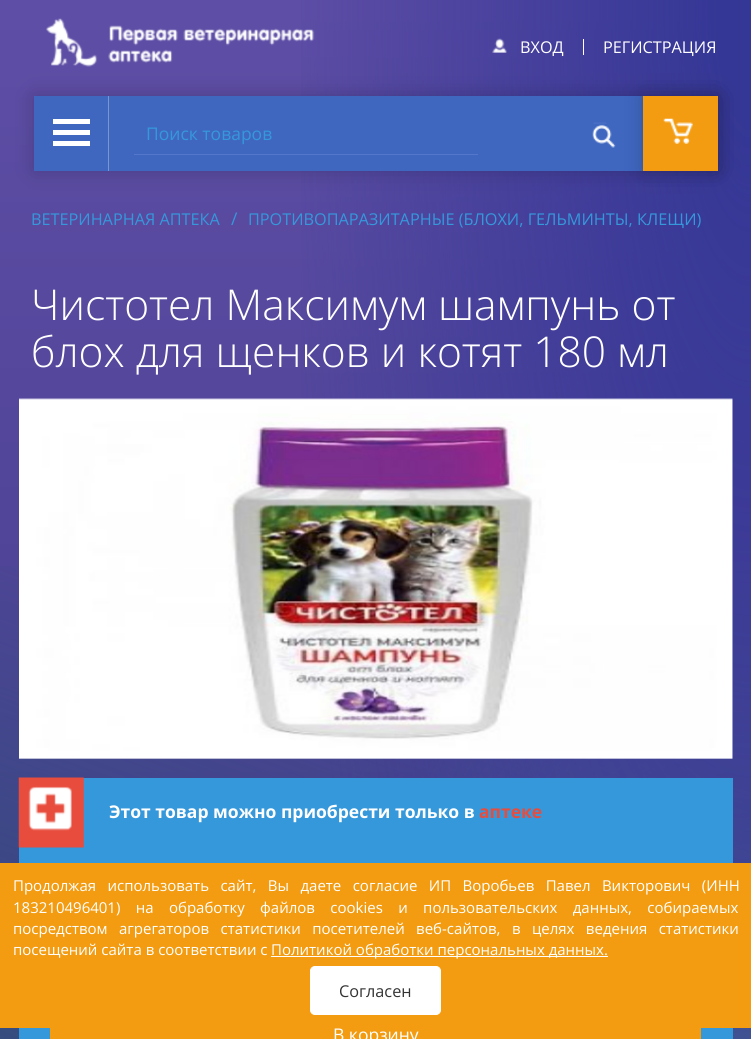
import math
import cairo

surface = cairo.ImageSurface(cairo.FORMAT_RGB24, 751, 1039)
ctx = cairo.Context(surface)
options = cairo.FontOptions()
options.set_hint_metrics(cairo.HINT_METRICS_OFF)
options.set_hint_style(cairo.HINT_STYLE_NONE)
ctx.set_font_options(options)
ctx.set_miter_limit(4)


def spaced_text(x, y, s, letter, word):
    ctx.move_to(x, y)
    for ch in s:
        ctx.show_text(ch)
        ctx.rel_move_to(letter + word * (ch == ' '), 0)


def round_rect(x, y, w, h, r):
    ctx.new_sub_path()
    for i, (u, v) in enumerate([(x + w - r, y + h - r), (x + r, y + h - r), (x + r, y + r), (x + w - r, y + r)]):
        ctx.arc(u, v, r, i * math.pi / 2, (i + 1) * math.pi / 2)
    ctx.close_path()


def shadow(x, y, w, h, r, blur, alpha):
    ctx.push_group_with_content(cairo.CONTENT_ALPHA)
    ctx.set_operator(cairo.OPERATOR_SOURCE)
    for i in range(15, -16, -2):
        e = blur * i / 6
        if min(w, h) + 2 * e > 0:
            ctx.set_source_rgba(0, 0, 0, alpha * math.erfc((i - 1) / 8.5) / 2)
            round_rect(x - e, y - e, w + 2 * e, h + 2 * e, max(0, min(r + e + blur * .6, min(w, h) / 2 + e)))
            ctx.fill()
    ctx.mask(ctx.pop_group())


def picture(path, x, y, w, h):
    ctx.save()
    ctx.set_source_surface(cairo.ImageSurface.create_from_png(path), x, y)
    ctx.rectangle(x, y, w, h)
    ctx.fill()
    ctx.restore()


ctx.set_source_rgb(1, 1, 1)
ctx.paint()
gradient = cairo.LinearGradient(376, 0, 376, 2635)
gradient.add_color_stop_rgba(0, 0.373, 0.306, 0.651, 1)
gradient.add_color_stop_rgba(1, 0.078, 0.125, 0.384, 1)
ctx.set_source(gradient)
ctx.rectangle(0, 0, 751, 1039)
ctx.fill()
gradient = cairo.LinearGradient(-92, 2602, 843, 33)
gradient.add_color_stop_rgba(0, 0.2, 0.314, 0.49, 0)
gradient.add_color_stop_rgba(0.26, 0.2, 0.314, 0.49, 0)
gradient.add_color_stop_rgba(0.47, 0.2, 0.314, 0.49, 1)
gradient.add_color_stop_rgba(0.51, 0.2, 0.314, 0.49, 1)
gradient.add_color_stop_rgba(0.73, 0.2, 0.314, 0.49, 0)
gradient.add_color_stop_rgba(1, 0.2, 0.314, 0.49, 0)
ctx.set_source(gradient)
ctx.rectangle(0, 566, 751, 473)
ctx.fill()
gradient = cairo.RadialGradient(0, 0, 0, 0, 0, 1)
gradient.set_matrix(cairo.Matrix(1 / 1062, 0, 0, 1 / 2273, -1 * 751 / 1062, -1 * 1607 / 2273))
gradient.add_color_stop_rgba(0.01, 0.337, 0.553, 0.6, 0.9)
gradient.add_color_stop_rgba(0.12, 0.337, 0.553, 0.6, 0.8)
gradient.add_color_stop_rgba(0.32, 0.337, 0.553, 0.6, 0.25)
gradient.add_color_stop_rgba(0.48, 0.337, 0.553, 0.6, 0.01)
gradient.add_color_stop_rgba(0.49, 0.337, 0.553, 0.6, 0)
ctx.set_source(gradient)
ctx.rectangle(431, 551, 320, 488)
ctx.fill()
gradient = cairo.RadialGradient(0, 0, 0, 0, 0, 1)
gradient.set_matrix(cairo.Matrix(1 / 1062, 0, 0, 1 / 3726, -1 * 751 / 1062, -1 * 0 / 3726))
gradient.add_color_stop_rgba(0.03, 0.208, 0.216, 0.588, 1)
gradient.add_color_stop_rgba(0.45, 0.208, 0.216, 0.588, 0)
ctx.set_source(gradient)
ctx.rectangle(301, 0, 450, 1039)
ctx.fill()
picture("img1.png", 46, 18, 269, 49)
picture("img2.png", 492, 38, 15, 15)
ctx.select_font_face("Open Sans")
ctx.set_font_size(16.25)
ctx.set_source_rgb(1, 1, 1)
ctx.move_to(520, 53)
ctx.show_text("ВХОД")
ctx.rectangle(583, 39, 1, 16)
ctx.fill()
ctx.move_to(603, 53)
ctx.show_text("РЕГИСТРАЦИЯ")
ctx.set_source_rgb(0, 0, 0)
shadow(34, 96, 684, 75, 0, 10.5, 0.2)
ctx.set_source_rgb(0.247, 0.404, 0.753)
ctx.rectangle(34, 96, 609, 75)
ctx.fill()
ctx.set_source_rgb(0.475, 0.584, 0.827)
ctx.rectangle(108, 96, 1, 75)
ctx.fill()
ctx.set_source_rgb(1, 1, 1)
ctx.rectangle(53, 119, 37, 5)
ctx.fill()
ctx.rectangle(53, 130, 37, 5)
ctx.fill()
ctx.rectangle(53, 141, 37, 5)
ctx.fill()
ctx.set_source_rgb(0.329, 0.467, 0.8)
ctx.rectangle(134, 154, 344, 1)
ctx.fill()
ctx.set_font_size(17.5)
ctx.set_source_rgb(0.208, 0.596, 0.859)
ctx.move_to(146, 140)
ctx.show_text("Поиск товаров")
ctx.set_source_rgb(0, 0, 0)
shadow(643, 96, 75, 75, 0, 10.5, 0.2)
picture("img3.png", 592, 122, 24, 26)
ctx.set_source_rgb(0.953, 0.612, 0.067)
ctx.rectangle(643, 96, 75, 75)
ctx.fill()
picture("img4.png", 663, 118, 30, 26)
ctx.set_font_size(16.25)
ctx.set_source_rgb(0.208, 0.596, 0.859)
ctx.move_to(31, 225)
ctx.show_text("ВЕТЕРИНАРНАЯ АПТЕКА")
ctx.set_font_size(17.5)
ctx.move_to(231, 225)
ctx.show_text("/")
ctx.set_font_size(16.25)
ctx.move_to(248, 225)
ctx.show_text("ПРОТИВОПАРАЗИТАРНЫЕ (БЛОХИ, ГЕЛЬМИНТЫ, КЛЕЩИ)")
ctx.select_font_face("Open Sans Light")
ctx.set_font_size(42.5)
ctx.set_source_rgb(1, 1, 1)
ctx.move_to(31, 320)
ctx.show_text("Чистотел Максимум шампунь от")
ctx.move_to(31, 367)
ctx.show_text("блох для щенков и котят 180 мл")
picture("img5.png", 19, 398, 714, 361)
ctx.set_source_rgb(0.208, 0.596, 0.859)
ctx.rectangle(19, 778, 714, 261)
ctx.fill()
picture("img6.png", 18, 777, 66, 71)
ctx.select_font_face("Open Sans", cairo.FONT_SLANT_NORMAL, cairo.FONT_WEIGHT_BOLD)
ctx.set_font_size(17.5)
ctx.set_source_rgb(1, 1, 1)
ctx.move_to(109, 818)
ctx.show_text("Этот товар можно приобрести только в")
ctx.set_source_rgb(0.91, 0.298, 0.239)
ctx.move_to(479, 818)
ctx.show_text("аптеке")
ctx.set_source_rgb(0.953, 0.612, 0.067)
ctx.rectangle(50, 1028, 651, 11)
ctx.fill()
ctx.select_font_face("Open Sans")
ctx.set_source_rgb(1, 1, 1)
ctx.move_to(333, 1041)
ctx.show_text("В корзину")
ctx.set_source_rgb(0.953, 0.612, 0.067)
ctx.rectangle(0, 863, 751, 165)
ctx.fill()
ctx.set_font_size(15)
ctx.set_source_rgb(1, 1, 1)
spaced_text(13, 891, "Продолжая использовать сайт, Вы даете согласие ИП Воробьев Павел Викторович (ИНН", 0, 7.5)
spaced_text(13, 913, "183210496401) на обработку файлов cookies и пользовательских данных, собираемых", 0, 11.5)
spaced_text(13, 934, "посредством агрегаторов статистики посетителей веб-сайтов, в целях ведения статистики", 0, 7.5)
ctx.move_to(13, 955)
ctx.show_text("посещений сайта в соответствии с")
ctx.rectangle(271, 956, 337, 1)
ctx.fill()
ctx.move_to(271, 955)
ctx.show_text("Политикой обработки персональных данных.")
round_rect(310.5, 966.5, 130, 48, 4.5)
ctx.fill_preserve()
ctx.set_line_width(1)
ctx.stroke()
ctx.set_font_size(16.25)
ctx.set_source_rgb(0.2, 0.2, 0.2)
ctx.move_to(339, 997)
ctx.show_text("Согласен")
surface.write_to_png("page.png")
